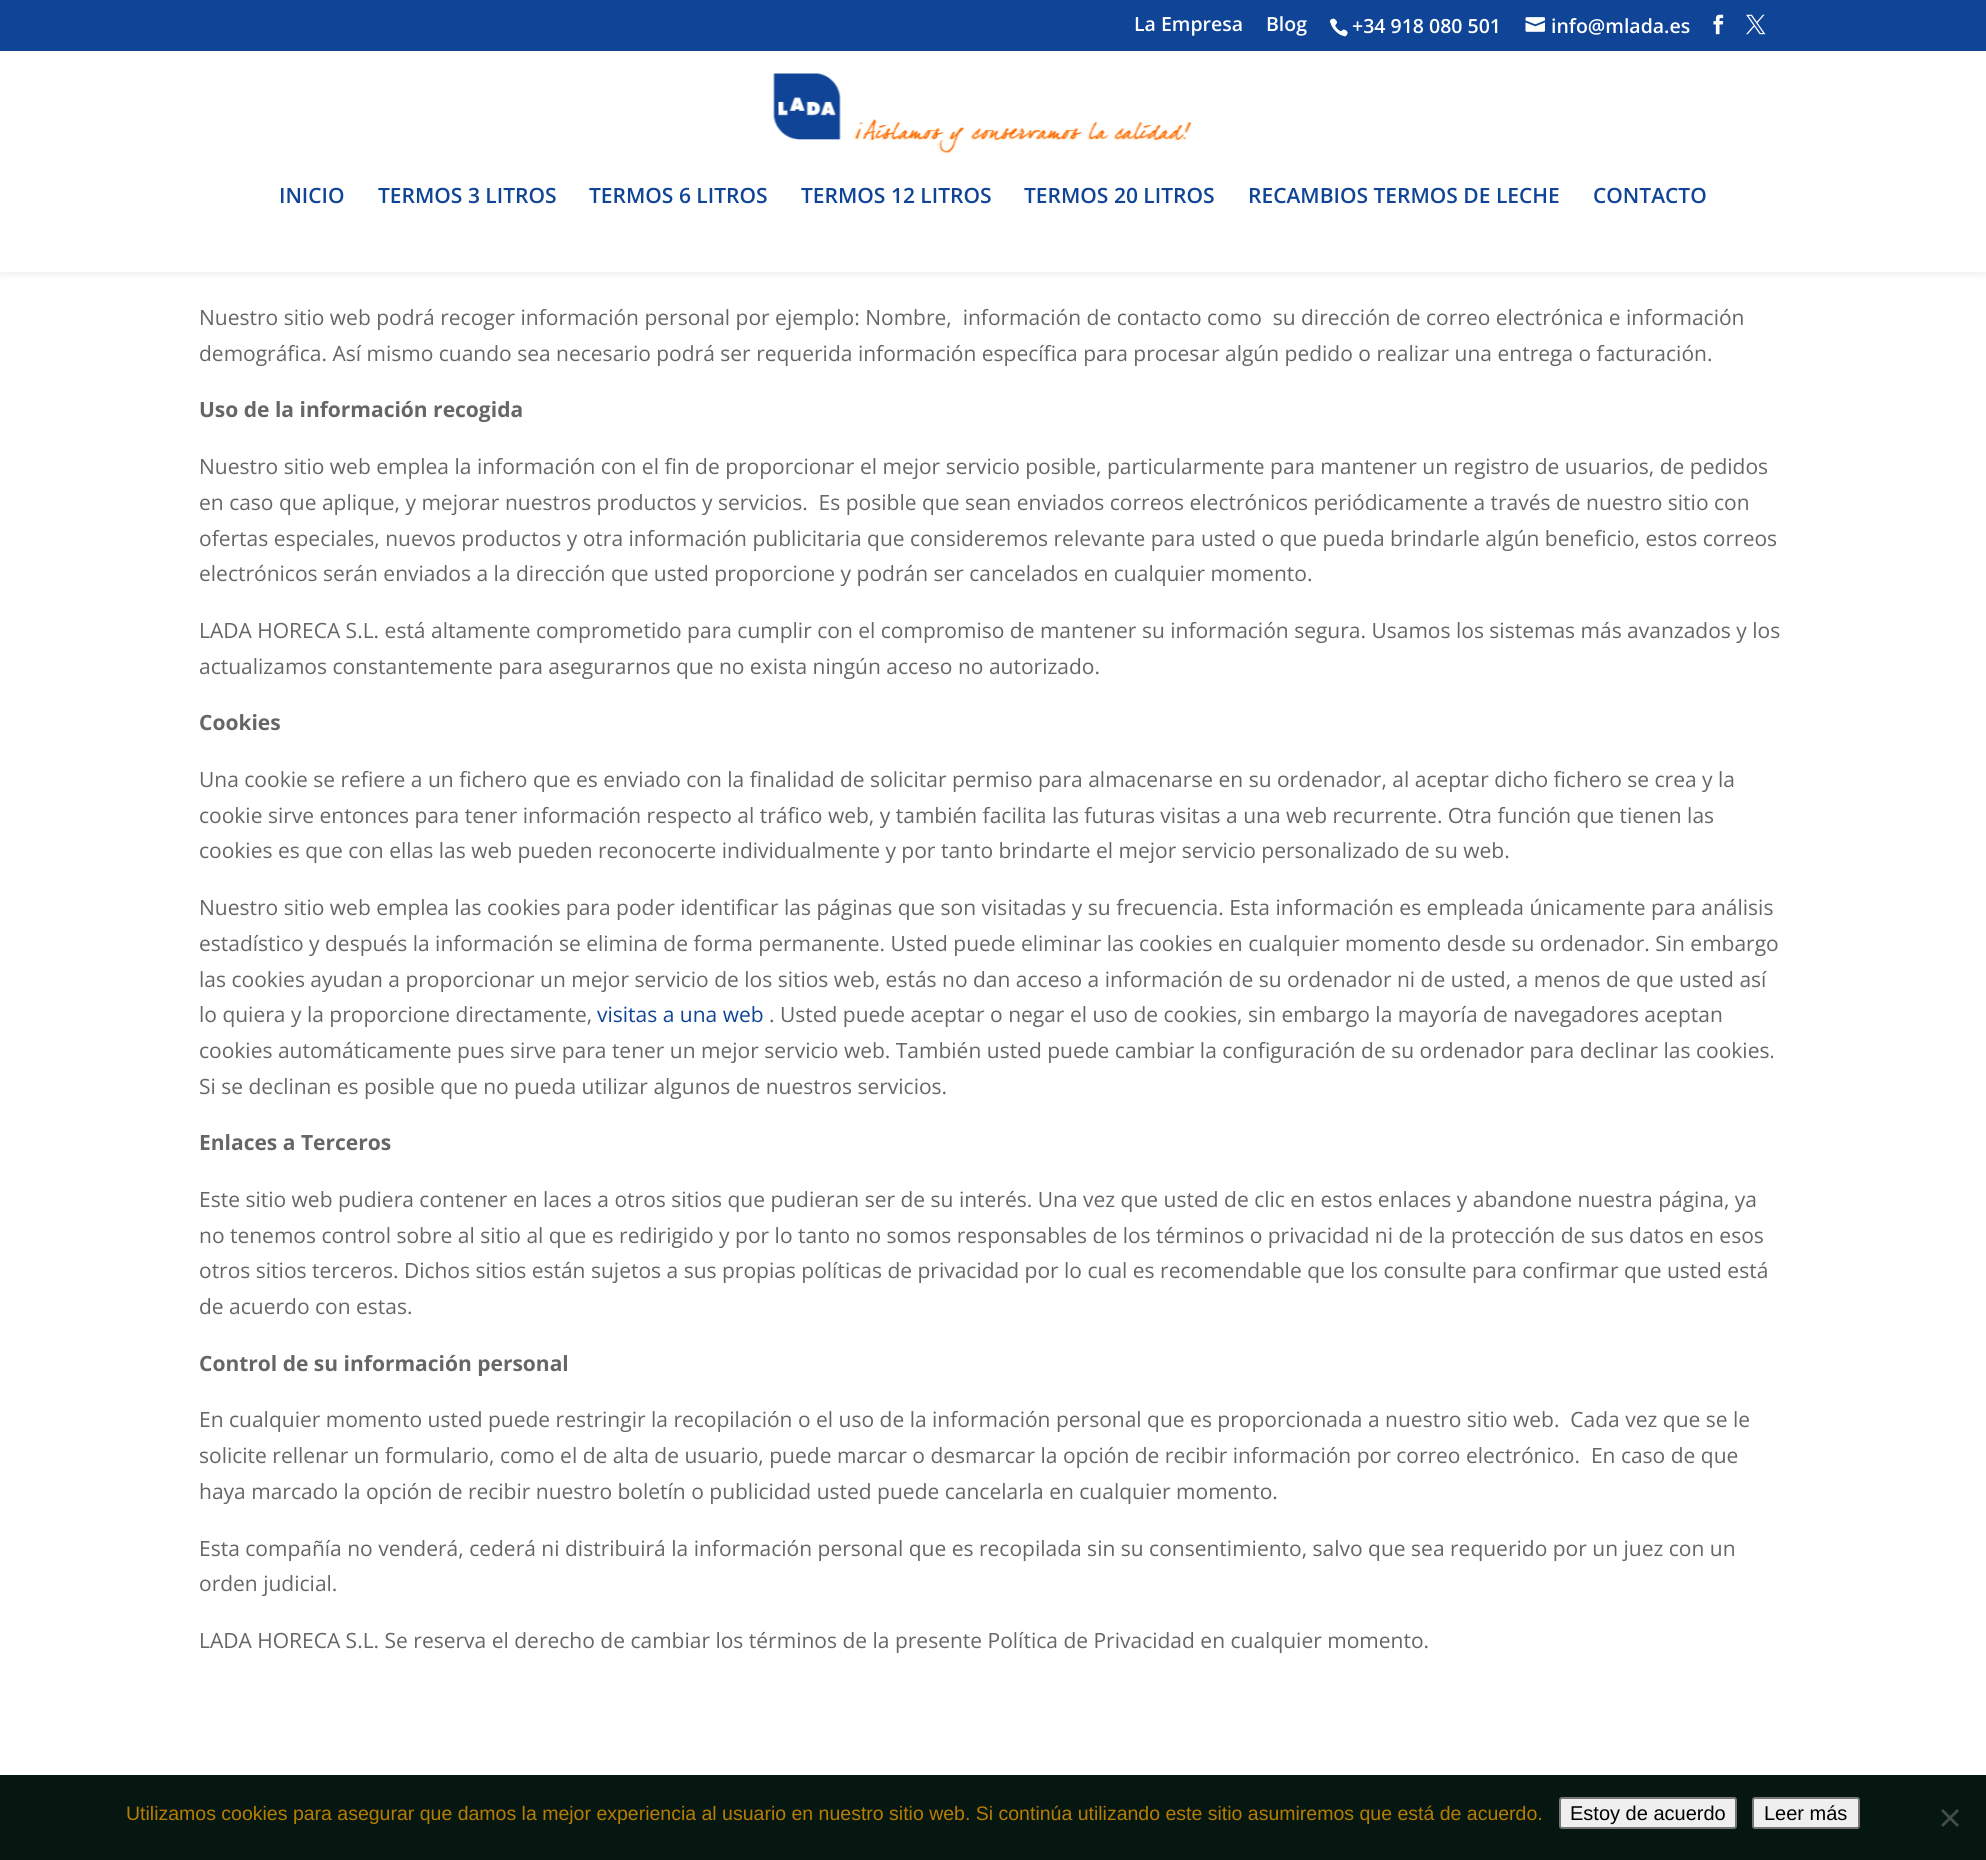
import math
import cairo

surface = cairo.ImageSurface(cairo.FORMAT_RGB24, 1986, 1860)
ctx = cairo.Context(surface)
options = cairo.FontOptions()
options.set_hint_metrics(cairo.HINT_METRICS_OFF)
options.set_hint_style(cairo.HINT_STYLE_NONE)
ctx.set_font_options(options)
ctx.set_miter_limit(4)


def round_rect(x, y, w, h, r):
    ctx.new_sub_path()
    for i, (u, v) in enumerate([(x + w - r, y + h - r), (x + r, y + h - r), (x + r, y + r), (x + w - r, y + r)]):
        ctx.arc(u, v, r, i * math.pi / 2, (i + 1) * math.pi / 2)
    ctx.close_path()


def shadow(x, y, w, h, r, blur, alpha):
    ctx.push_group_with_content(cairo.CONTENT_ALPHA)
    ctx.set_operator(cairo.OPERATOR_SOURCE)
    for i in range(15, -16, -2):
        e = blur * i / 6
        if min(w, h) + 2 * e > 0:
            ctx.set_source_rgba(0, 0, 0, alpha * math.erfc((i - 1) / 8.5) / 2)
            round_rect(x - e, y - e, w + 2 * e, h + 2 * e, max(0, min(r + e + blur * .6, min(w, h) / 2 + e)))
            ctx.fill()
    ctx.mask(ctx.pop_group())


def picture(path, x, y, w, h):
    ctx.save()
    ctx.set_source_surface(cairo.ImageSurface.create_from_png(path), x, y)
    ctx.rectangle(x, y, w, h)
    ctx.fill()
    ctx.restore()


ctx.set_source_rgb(1, 1, 1)
ctx.paint()
ctx.set_source_rgb(0, 0, 0)
shadow(0, 51, 1986, 221, 0, 5, 0.1)
ctx.set_source_rgb(0.059, 0.267, 0.592)
ctx.rectangle(0, 0, 1986, 51)
ctx.fill()
ctx.select_font_face("Open Sans SemiBold")
ctx.set_font_size(19.5)
ctx.set_source_rgb(1, 1, 1)
ctx.move_to(1134, 31)
ctx.show_text("La Empresa")
ctx.move_to(1266, 31)
ctx.show_text("Blog")
picture("img1.png", 1329, 18, 19, 19)
ctx.move_to(1352, 33)
ctx.show_text("+34 918 080 501")
picture("img2.png", 1525, 17, 20, 15)
ctx.move_to(1551, 33)
ctx.show_text("info@mlada.es")
picture("img3.png", 1713, 14, 11, 21)
picture("img4.png", 1746, 14, 20, 21)
ctx.rectangle(0, 51, 1986, 221)
ctx.fill()
picture("img5.png", 773, 73, 419, 81)
ctx.set_font_size(21)
ctx.set_source_rgb(0.059, 0.267, 0.592)
ctx.move_to(279, 203)
ctx.show_text("INICIO")
ctx.move_to(378, 203)
ctx.show_text("TERMOS 3 LITROS")
ctx.move_to(589, 203)
ctx.show_text("TERMOS 6 LITROS")
ctx.move_to(801, 203)
ctx.show_text("TERMOS 12 LITROS")
ctx.move_to(1024, 203)
ctx.show_text("TERMOS 20 LITROS")
ctx.move_to(1248, 203)
ctx.show_text("RECAMBIOS TERMOS DE LECHE")
ctx.move_to(1593, 203)
ctx.show_text("CONTACTO")
ctx.select_font_face("Open Sans")
ctx.set_source_rgb(0.4, 0.4, 0.4)
ctx.move_to(199, 325)
ctx.show_text("Nuestro sitio web podrá recoger información personal por ejemplo: Nombre,  información de contacto como  su dirección de correo electrónica e información")
ctx.move_to(199, 361)
ctx.show_text("demográfica. Así mismo cuando sea necesario podrá ser requerida información específica para procesar algún pedido o realizar una entrega o facturación.")
ctx.select_font_face("Open Sans", cairo.FONT_SLANT_NORMAL, cairo.FONT_WEIGHT_BOLD)
ctx.move_to(199, 417)
ctx.show_text("Uso de la información recogida")
ctx.select_font_face("Open Sans")
ctx.move_to(199, 474)
ctx.show_text("Nuestro sitio web emplea la información con el fin de proporcionar el mejor servicio posible, particularmente para mantener un registro de usuarios, de pedidos")
ctx.move_to(199, 510)
ctx.show_text("en caso que aplique, y mejorar nuestros productos y servicios.  Es posible que sean enviados correos electrónicos periódicamente a través de nuestro sitio con")
ctx.move_to(199, 546)
ctx.show_text("ofertas especiales, nuevos productos y otra información publicitaria que consideremos relevante para usted o que pueda brindarle algún beneficio, estos correos")
ctx.move_to(199, 581)
ctx.show_text("electrónicos serán enviados a la dirección que usted proporcione y podrán ser cancelados en cualquier momento.")
ctx.move_to(199, 638)
ctx.show_text("LADA HORECA S.L. está altamente comprometido para cumplir con el compromiso de mantener su información segura. Usamos los sistemas más avanzados y los")
ctx.move_to(199, 674)
ctx.show_text("actualizamos constantemente para asegurarnos que no exista ningún acceso no autorizado.")
ctx.select_font_face("Open Sans", cairo.FONT_SLANT_NORMAL, cairo.FONT_WEIGHT_BOLD)
ctx.move_to(199, 730)
ctx.show_text("Cookies")
ctx.select_font_face("Open Sans")
ctx.move_to(199, 787)
ctx.show_text("Una cookie se refiere a un fichero que es enviado con la finalidad de solicitar permiso para almacenarse en su ordenador, al aceptar dicho fichero se crea y la")
ctx.move_to(199, 823)
ctx.show_text("cookie sirve entonces para tener información respecto al tráfico web, y también facilita las futuras visitas a una web recurrente. Otra función que tienen las")
ctx.move_to(199, 858)
ctx.show_text("cookies es que con ellas las web pueden reconocerte individualmente y por tanto brindarte el mejor servicio personalizado de su web.")
ctx.move_to(199, 915)
ctx.show_text("Nuestro sitio web emplea las cookies para poder identificar las páginas que son visitadas y su frecuencia. Esta información es empleada únicamente para análisis")
ctx.move_to(199, 951)
ctx.show_text("estadístico y después la información se elimina de forma permanente. Usted puede eliminar las cookies en cualquier momento desde su ordenador. Sin embargo")
ctx.move_to(199, 987)
ctx.show_text("las cookies ayudan a proporcionar un mejor servicio de los sitios web, estás no dan acceso a información de su ordenador ni de usted, a menos de que usted así")
ctx.move_to(199, 1022)
ctx.show_text("lo quiera y la proporcione directamente,")
ctx.set_source_rgb(0.059, 0.267, 0.592)
ctx.move_to(597, 1022)
ctx.show_text("visitas a una web")
ctx.set_source_rgb(0.4, 0.4, 0.4)
ctx.move_to(769, 1022)
ctx.show_text(". Usted puede aceptar o negar el uso de cookies, sin embargo la mayoría de navegadores aceptan")
ctx.move_to(199, 1058)
ctx.show_text("cookies automáticamente pues sirve para tener un mejor servicio web. También usted puede cambiar la configuración de su ordenador para declinar las cookies.")
ctx.move_to(199, 1094)
ctx.show_text("Si se declinan es posible que no pueda utilizar algunos de nuestros servicios.")
ctx.select_font_face("Open Sans", cairo.FONT_SLANT_NORMAL, cairo.FONT_WEIGHT_BOLD)
ctx.move_to(199, 1150)
ctx.show_text("Enlaces a Terceros")
ctx.select_font_face("Open Sans")
ctx.move_to(199, 1207)
ctx.show_text("Este sitio web pudiera contener en laces a otros sitios que pudieran ser de su interés. Una vez que usted de clic en estos enlaces y abandone nuestra página, ya")
ctx.move_to(199, 1243)
ctx.show_text("no tenemos control sobre al sitio al que es redirigido y por lo tanto no somos responsables de los términos o privacidad ni de la protección de sus datos en esos")
ctx.move_to(199, 1278)
ctx.show_text("otros sitios terceros. Dichos sitios están sujetos a sus propias políticas de privacidad por lo cual es recomendable que los consulte para confirmar que usted está")
ctx.move_to(199, 1314)
ctx.show_text("de acuerdo con estas.")
ctx.select_font_face("Open Sans", cairo.FONT_SLANT_NORMAL, cairo.FONT_WEIGHT_BOLD)
ctx.move_to(199, 1371)
ctx.show_text("Control de su información personal")
ctx.select_font_face("Open Sans")
ctx.move_to(199, 1427)
ctx.show_text("En cualquier momento usted puede restringir la recopilación o el uso de la información personal que es proporcionada a nuestro sitio web.  Cada vez que se le")
ctx.move_to(199, 1463)
ctx.show_text("solicite rellenar un formulario, como el de alta de usuario, puede marcar o desmarcar la opción de recibir información por correo electrónico.  En caso de que")
ctx.move_to(199, 1499)
ctx.show_text("haya marcado la opción de recibir nuestro boletín o publicidad usted puede cancelarla en cualquier momento.")
ctx.move_to(199, 1556)
ctx.show_text("Esta compañía no venderá, cederá ni distribuirá la información personal que es recopilada sin su consentimiento, salvo que sea requerido por un juez con un")
ctx.move_to(199, 1591)
ctx.show_text("orden judicial.")
ctx.move_to(199, 1648)
ctx.show_text("LADA HORECA S.L. Se reserva el derecho de cambiar los términos de la presente Política de Privacidad en cualquier momento.")
ctx.set_source_rgb(0.024, 0.09, 0.071)
ctx.rectangle(0, 1775, 1986, 85)
ctx.fill()
ctx.select_font_face("Liberation Sans")
ctx.set_font_size(19.5)
ctx.set_source_rgb(0.718, 0.49, 0)
ctx.move_to(126, 1820)
ctx.show_text("Utilizamos cookies para asegurar que damos la mejor experiencia al usuario en nuestro sitio web. Si continúa utilizando este sitio asumiremos que está de acuerdo.")
ctx.set_source_rgb(0.937, 0.937, 0.937)
round_rect(1560, 1798, 176, 30, 2)
ctx.fill_preserve()
ctx.set_source_rgb(0.463, 0.463, 0.463)
ctx.stroke()
ctx.set_font_size(20)
ctx.set_source_rgb(0, 0, 0)
ctx.move_to(1570, 1820)
ctx.show_text("Estoy de acuerdo")
ctx.set_source_rgb(0.937, 0.937, 0.937)
round_rect(1753, 1798, 106, 30, 2)
ctx.fill_preserve()
ctx.set_source_rgb(0.463, 0.463, 0.463)
ctx.stroke()
ctx.set_source_rgb(0, 0, 0)
ctx.move_to(1764, 1820)
ctx.show_text("Leer más")
ctx.set_source_rgb(0.263, 0.298, 0.286)
ctx.new_path()
ctx.move_to(1957, 1809)
ctx.line_to(1959, 1811)
ctx.line_to(1943, 1827)
ctx.line_to(1941, 1825)
ctx.close_path()
ctx.fill()
ctx.new_path()
ctx.move_to(1941, 1811)
ctx.line_to(1943, 1809)
ctx.line_to(1959, 1825)
ctx.line_to(1957, 1827)
ctx.close_path()
ctx.fill()
surface.write_to_png("page.png")
